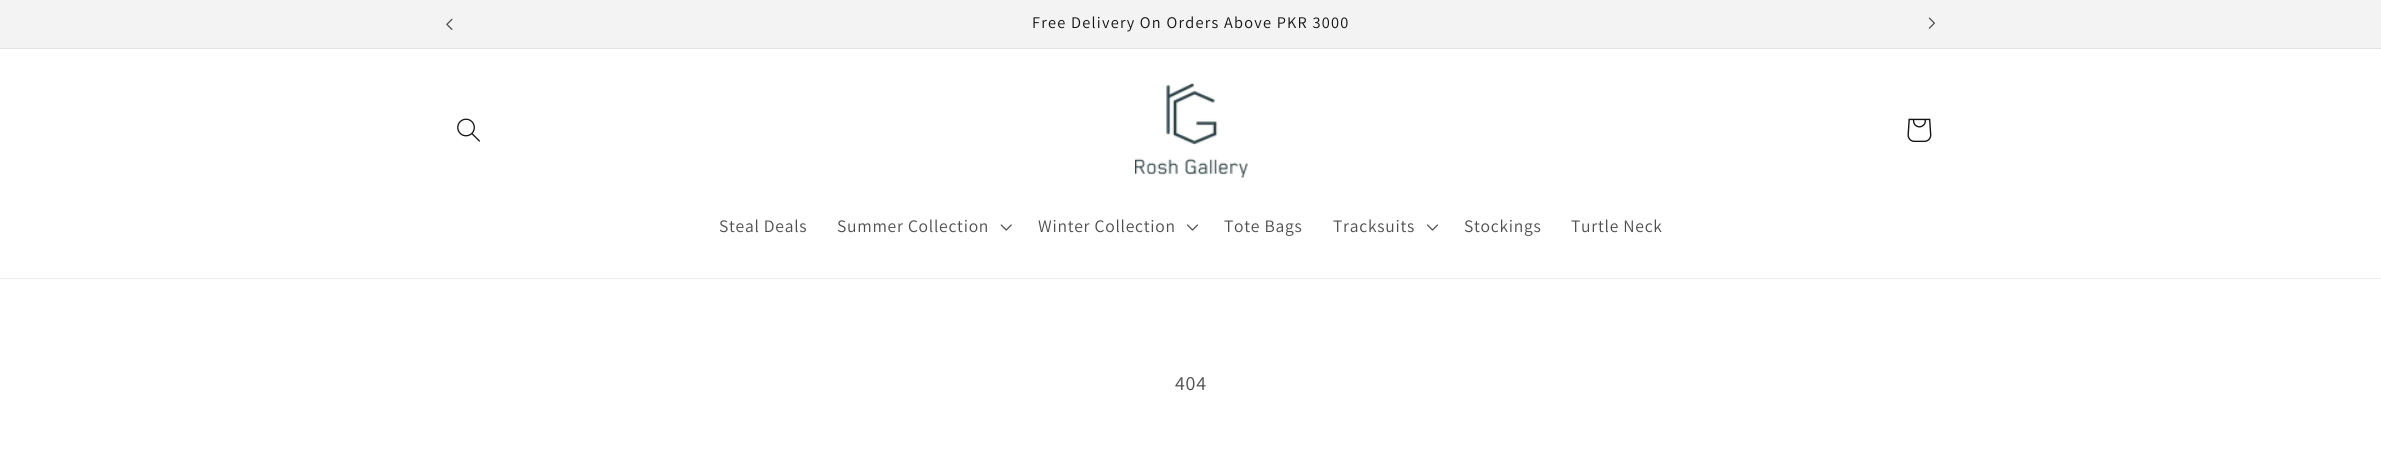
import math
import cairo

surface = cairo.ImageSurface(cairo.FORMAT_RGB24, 2381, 466)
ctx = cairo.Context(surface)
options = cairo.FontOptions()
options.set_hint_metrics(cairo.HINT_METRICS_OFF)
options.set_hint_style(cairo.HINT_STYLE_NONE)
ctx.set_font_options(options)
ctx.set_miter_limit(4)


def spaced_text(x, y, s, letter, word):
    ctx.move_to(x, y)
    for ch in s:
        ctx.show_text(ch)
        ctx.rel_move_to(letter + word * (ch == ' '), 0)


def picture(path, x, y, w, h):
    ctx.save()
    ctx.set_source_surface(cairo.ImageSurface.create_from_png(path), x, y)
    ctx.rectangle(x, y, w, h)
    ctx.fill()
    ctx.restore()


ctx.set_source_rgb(1, 1, 1)
ctx.paint()
ctx.set_source_rgb(0.953, 0.953, 0.953)
ctx.rectangle(0, 0, 2381, 48)
ctx.fill()
ctx.set_source_rgb(0.882, 0.882, 0.882)
ctx.rectangle(0, 48, 2381, 1)
ctx.fill()
picture("img1.png", 446, 18, 7, 12)
ctx.select_font_face("Assistant")
ctx.set_font_size(16.25)
ctx.set_source_rgb(0.071, 0.071, 0.071)
spaced_text(1032, 28, "Free Delivery On Orders Above PKR 3000", 1.25, 0)
picture("img2.png", 1928, 17, 7, 12)
ctx.set_source_rgb(0.925, 0.925, 0.925)
ctx.rectangle(0, 278, 2381, 1)
ctx.fill()
picture("img3.png", 457, 118, 23, 24)
picture("img4.png", 1135, 83, 113, 95)
picture("img5.png", 1907, 118, 25, 24)
ctx.set_font_size(17.5)
ctx.set_source_rgb(0.302, 0.302, 0.302)
spaced_text(719, 232, "Steal Deals", 0.75, 0)
spaced_text(837, 232, "Summer Collection", 0.75, 0)
picture("img6.png", 1000, 224, 12, 7)
spaced_text(1038, 232, "Winter Collection", 0.75, 0)
picture("img7.png", 1187, 224, 11, 7)
spaced_text(1224, 232, "Tote Bags", 0.75, 0)
spaced_text(1333, 232, "Tracksuits", 0.75, 0)
picture("img7.png", 1427, 224, 11, 7)
spaced_text(1464, 232, "Stockings", 0.75, 0)
spaced_text(1571, 232, "Turtle Neck", 0.75, 0)
ctx.set_font_size(20)
spaced_text(1175, 390, "404", 0.75, 0)
surface.write_to_png("page.png")
